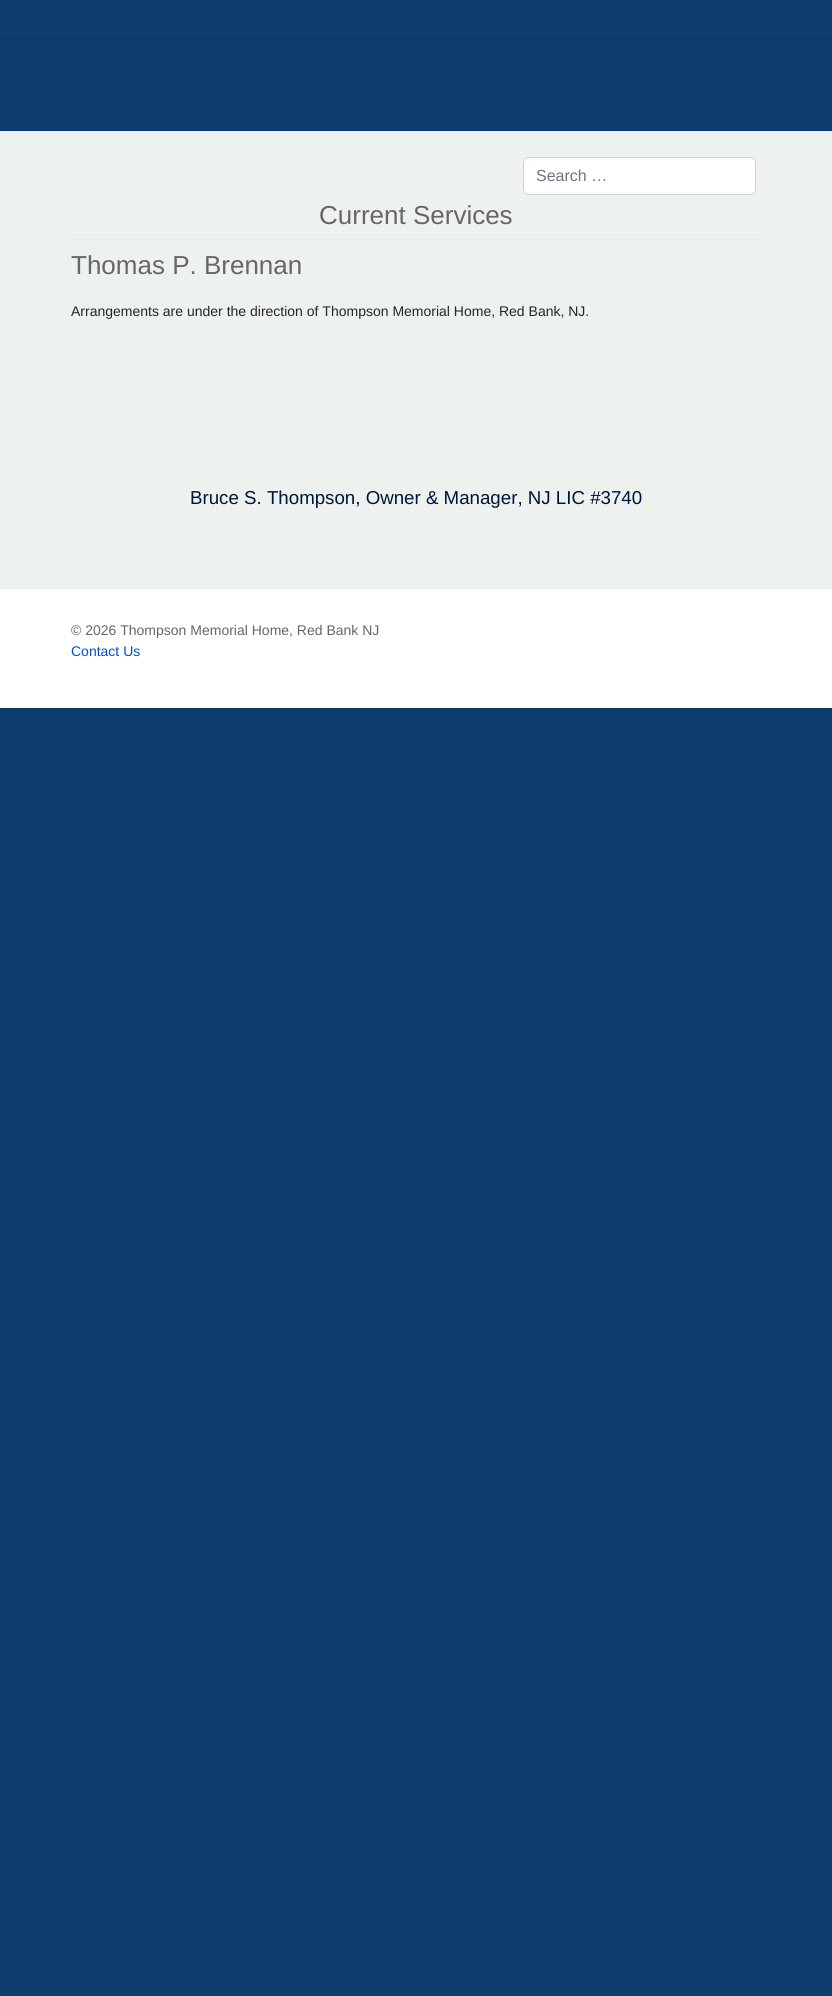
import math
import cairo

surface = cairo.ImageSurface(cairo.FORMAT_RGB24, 832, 1996)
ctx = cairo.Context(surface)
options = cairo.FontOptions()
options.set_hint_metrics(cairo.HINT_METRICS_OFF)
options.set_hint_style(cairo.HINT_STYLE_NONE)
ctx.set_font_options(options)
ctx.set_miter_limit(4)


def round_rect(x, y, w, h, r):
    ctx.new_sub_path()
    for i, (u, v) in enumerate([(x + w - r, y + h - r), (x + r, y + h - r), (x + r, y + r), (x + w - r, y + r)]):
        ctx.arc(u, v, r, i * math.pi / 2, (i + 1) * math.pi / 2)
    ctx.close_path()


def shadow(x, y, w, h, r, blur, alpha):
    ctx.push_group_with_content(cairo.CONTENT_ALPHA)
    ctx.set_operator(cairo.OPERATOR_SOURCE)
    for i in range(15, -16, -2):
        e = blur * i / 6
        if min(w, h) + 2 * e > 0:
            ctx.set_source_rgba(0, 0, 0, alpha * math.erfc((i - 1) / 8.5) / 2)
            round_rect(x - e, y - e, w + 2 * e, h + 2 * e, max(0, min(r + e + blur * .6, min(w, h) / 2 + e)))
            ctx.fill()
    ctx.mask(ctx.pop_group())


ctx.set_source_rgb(0.051, 0.239, 0.431)
ctx.paint()
ctx.set_source_rgb(0, 0, 0)
shadow(0, 40, 832, 668, 0, 2.5, 0.2)
ctx.set_source_rgb(1, 1, 1)
ctx.rectangle(0, 589, 832, 119)
ctx.fill()
ctx.set_source_rgb(0.051, 0.239, 0.431)
ctx.rectangle(0, 40, 832, 91)
ctx.fill()
ctx.set_source_rgb(0.929, 0.949, 0.933)
ctx.rectangle(0, 131, 832, 458)
ctx.fill()
ctx.set_source_rgb(1, 1, 1)
round_rect(523.5, 157.5, 232, 37, 5.5)
ctx.fill_preserve()
ctx.set_source_rgb(0.808, 0.831, 0.855)
ctx.set_line_width(1)
ctx.stroke()
ctx.select_font_face("Liberation Sans")
ctx.set_font_size(16)
ctx.set_source_rgb(0.424, 0.459, 0.49)
ctx.move_to(536, 181)
ctx.show_text("Search …")
ctx.set_source_rgb(0.914, 0.914, 0.914)
ctx.rectangle(71, 239, 690, 1)
ctx.fill()
ctx.set_font_size(26)
ctx.set_source_rgb(0.4, 0.4, 0.4)
ctx.move_to(319, 224)
ctx.show_text("Current Services")
ctx.move_to(71, 274)
ctx.show_text("Thomas P. Brennan")
ctx.set_font_size(14)
ctx.set_source_rgb(0.145, 0.145, 0.145)
ctx.move_to(71, 316)
ctx.show_text("Arrangements are under the direction of Thompson Memorial Home, Red Bank, NJ.")
ctx.set_font_size(18.7)
ctx.set_source_rgb(0, 0.082, 0.231)
ctx.move_to(190, 504)
ctx.show_text("Bruce S. Thompson, Owner & Manager, NJ LIC #3740")
ctx.set_font_size(14)
ctx.set_source_rgb(0.4, 0.4, 0.4)
ctx.move_to(71, 635)
ctx.show_text("© 2026 Thompson Memorial Home, Red Bank NJ")
ctx.set_source_rgb(0.016, 0.298, 0.816)
ctx.move_to(71, 656)
ctx.show_text("Contact Us")
surface.write_to_png("page.png")
